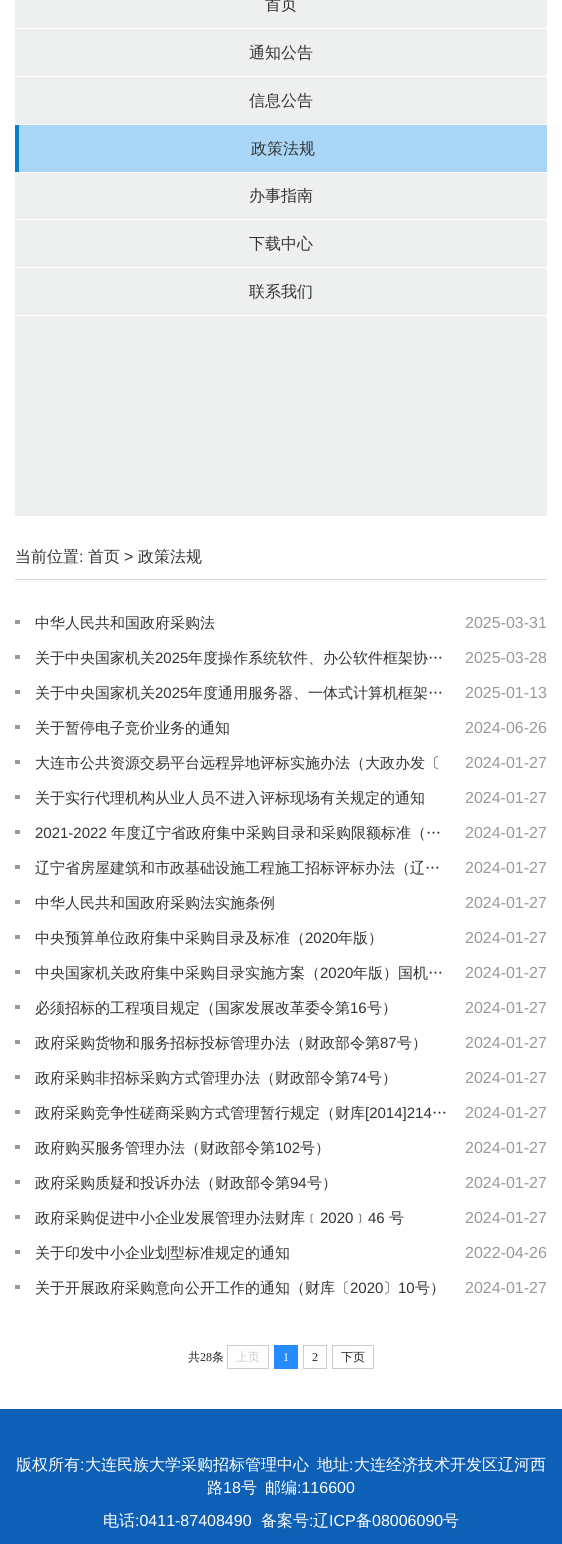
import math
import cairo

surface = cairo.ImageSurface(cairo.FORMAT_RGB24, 562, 1544)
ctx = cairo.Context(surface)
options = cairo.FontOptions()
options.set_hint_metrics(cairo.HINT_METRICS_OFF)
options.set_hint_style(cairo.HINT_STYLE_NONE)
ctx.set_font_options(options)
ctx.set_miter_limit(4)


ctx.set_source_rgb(1, 1, 1)
ctx.paint()
ctx.set_source_rgb(0.933, 0.941, 0.937)
ctx.rectangle(15, 0, 532, 516)
ctx.fill()
ctx.set_source_rgb(1, 1, 1)
ctx.rectangle(15, 28, 532, 1)
ctx.fill()
ctx.select_font_face("WenQuanYi Zen Hei Medium")
ctx.set_font_size(16)
ctx.set_source_rgb(0.2, 0.2, 0.2)
ctx.move_to(265, 10)
ctx.show_text("首页")
ctx.set_source_rgb(1, 1, 1)
ctx.rectangle(15, 76, 532, 1)
ctx.fill()
ctx.set_source_rgb(0.2, 0.2, 0.2)
ctx.move_to(249, 58)
ctx.show_text("通知公告")
ctx.set_source_rgb(1, 1, 1)
ctx.rectangle(15, 124, 532, 1)
ctx.fill()
ctx.set_source_rgb(0.2, 0.2, 0.2)
ctx.move_to(249, 106)
ctx.show_text("信息公告")
ctx.set_source_rgb(0.663, 0.839, 0.965)
ctx.rectangle(19, 125, 528, 47)
ctx.fill()
ctx.set_source_rgb(0.024, 0.502, 0.78)
ctx.rectangle(15, 125, 4, 47)
ctx.fill()
ctx.set_source_rgb(1, 1, 1)
ctx.rectangle(19, 172, 528, 1)
ctx.fill()
ctx.set_source_rgb(0.2, 0.2, 0.2)
ctx.move_to(251, 154)
ctx.show_text("政策法规")
ctx.set_source_rgb(1, 1, 1)
ctx.rectangle(15, 219, 532, 1)
ctx.fill()
ctx.set_source_rgb(0.2, 0.2, 0.2)
ctx.move_to(249, 201)
ctx.show_text("办事指南")
ctx.set_source_rgb(1, 1, 1)
ctx.rectangle(15, 267, 532, 1)
ctx.fill()
ctx.set_source_rgb(0.2, 0.2, 0.2)
ctx.move_to(249, 249)
ctx.show_text("下载中心")
ctx.set_source_rgb(1, 1, 1)
ctx.rectangle(15, 315, 532, 1)
ctx.fill()
ctx.set_source_rgb(0.2, 0.2, 0.2)
ctx.move_to(249, 297)
ctx.show_text("联系我们")
ctx.set_source_rgb(0.851, 0.851, 0.851)
ctx.rectangle(15, 579, 532, 1)
ctx.fill()
ctx.set_source_rgb(0.2, 0.2, 0.2)
ctx.move_to(15, 562)
ctx.show_text("当前位置")
ctx.select_font_face("Liberation Sans")
ctx.move_to(79, 562)
ctx.show_text(":")
ctx.select_font_face("WenQuanYi Zen Hei Medium")
ctx.move_to(88, 562)
ctx.show_text("首页")
ctx.select_font_face("Liberation Sans")
ctx.move_to(124, 562)
ctx.show_text(">")
ctx.select_font_face("WenQuanYi Zen Hei Medium")
ctx.move_to(138, 562)
ctx.show_text("政策法规")
ctx.set_font_size(15)
ctx.move_to(35, 628)
ctx.show_text("中华人民共和国政府采购法")
ctx.set_source_rgb(0.6, 0.6, 0.6)
ctx.rectangle(15, 620, 5, 4)
ctx.fill()
ctx.select_font_face("Liberation Sans")
ctx.set_font_size(16)
ctx.move_to(465, 628)
ctx.show_text("2025-03-31")
ctx.select_font_face("WenQuanYi Zen Hei Medium")
ctx.set_font_size(15)
ctx.set_source_rgb(0.2, 0.2, 0.2)
ctx.move_to(35, 663)
ctx.show_text("关于中央国家机关")
ctx.set_source_rgb(0.6, 0.6, 0.6)
ctx.rectangle(15, 655, 5, 4)
ctx.fill()
ctx.select_font_face("Liberation Sans")
ctx.set_source_rgb(0.2, 0.2, 0.2)
ctx.move_to(155, 663)
ctx.show_text("2025")
ctx.select_font_face("WenQuanYi Zen Hei Medium")
ctx.move_to(188, 663)
ctx.show_text("年度操作系统软件、办公软件框架协…")
ctx.select_font_face("Liberation Sans")
ctx.set_font_size(16)
ctx.set_source_rgb(0.6, 0.6, 0.6)
ctx.move_to(465, 663)
ctx.show_text("2025-03-28")
ctx.select_font_face("WenQuanYi Zen Hei Medium")
ctx.set_font_size(15)
ctx.set_source_rgb(0.2, 0.2, 0.2)
ctx.move_to(35, 698)
ctx.show_text("关于中央国家机关")
ctx.set_source_rgb(0.6, 0.6, 0.6)
ctx.rectangle(15, 690, 5, 4)
ctx.fill()
ctx.select_font_face("Liberation Sans")
ctx.set_source_rgb(0.2, 0.2, 0.2)
ctx.move_to(155, 698)
ctx.show_text("2025")
ctx.select_font_face("WenQuanYi Zen Hei Medium")
ctx.move_to(188, 698)
ctx.show_text("年度通用服务器、一体式计算机框架…")
ctx.select_font_face("Liberation Sans")
ctx.set_font_size(16)
ctx.set_source_rgb(0.6, 0.6, 0.6)
ctx.move_to(465, 698)
ctx.show_text("2025-01-13")
ctx.select_font_face("WenQuanYi Zen Hei Medium")
ctx.set_font_size(15)
ctx.set_source_rgb(0.2, 0.2, 0.2)
ctx.move_to(35, 733)
ctx.show_text("关于暂停电子竞价业务的通知")
ctx.set_source_rgb(0.6, 0.6, 0.6)
ctx.rectangle(15, 725, 5, 4)
ctx.fill()
ctx.select_font_face("Liberation Sans")
ctx.set_font_size(16)
ctx.move_to(465, 733)
ctx.show_text("2024-06-26")
ctx.select_font_face("WenQuanYi Zen Hei Medium")
ctx.set_font_size(15)
ctx.set_source_rgb(0.2, 0.2, 0.2)
ctx.move_to(35, 768)
ctx.show_text("大连市公共资源交易平台远程异地评标实施办法（大政办发〔")
ctx.set_source_rgb(0.6, 0.6, 0.6)
ctx.rectangle(15, 760, 5, 4)
ctx.fill()
ctx.select_font_face("Liberation Sans")
ctx.set_font_size(16)
ctx.move_to(465, 768)
ctx.show_text("2024-01-27")
ctx.select_font_face("WenQuanYi Zen Hei Medium")
ctx.set_font_size(15)
ctx.set_source_rgb(0.2, 0.2, 0.2)
ctx.move_to(35, 803)
ctx.show_text("关于实行代理机构从业人员不进入评标现场有关规定的通知")
ctx.set_source_rgb(0.6, 0.6, 0.6)
ctx.rectangle(15, 795, 5, 4)
ctx.fill()
ctx.select_font_face("Liberation Sans")
ctx.set_font_size(16)
ctx.move_to(465, 803)
ctx.show_text("2024-01-27")
ctx.set_font_size(15)
ctx.set_source_rgb(0.2, 0.2, 0.2)
ctx.move_to(35, 838)
ctx.show_text("2021-2022")
ctx.set_source_rgb(0.6, 0.6, 0.6)
ctx.rectangle(15, 830, 5, 4)
ctx.fill()
ctx.select_font_face("WenQuanYi Zen Hei Medium")
ctx.set_source_rgb(0.2, 0.2, 0.2)
ctx.move_to(111, 838)
ctx.show_text("年度辽宁省政府集中采购目录和采购限额标准（…")
ctx.select_font_face("Liberation Sans")
ctx.set_font_size(16)
ctx.set_source_rgb(0.6, 0.6, 0.6)
ctx.move_to(465, 838)
ctx.show_text("2024-01-27")
ctx.select_font_face("WenQuanYi Zen Hei Medium")
ctx.set_font_size(15)
ctx.set_source_rgb(0.2, 0.2, 0.2)
ctx.move_to(35, 873)
ctx.show_text("辽宁省房屋建筑和市政基础设施工程施工招标评标办法（辽…")
ctx.set_source_rgb(0.6, 0.6, 0.6)
ctx.rectangle(15, 865, 5, 4)
ctx.fill()
ctx.select_font_face("Liberation Sans")
ctx.set_font_size(16)
ctx.move_to(465, 873)
ctx.show_text("2024-01-27")
ctx.select_font_face("WenQuanYi Zen Hei Medium")
ctx.set_font_size(15)
ctx.set_source_rgb(0.2, 0.2, 0.2)
ctx.move_to(35, 908)
ctx.show_text("中华人民共和国政府采购法实施条例")
ctx.set_source_rgb(0.6, 0.6, 0.6)
ctx.rectangle(15, 900, 5, 4)
ctx.fill()
ctx.select_font_face("Liberation Sans")
ctx.set_font_size(16)
ctx.move_to(465, 908)
ctx.show_text("2024-01-27")
ctx.select_font_face("WenQuanYi Zen Hei Medium")
ctx.set_font_size(15)
ctx.set_source_rgb(0.2, 0.2, 0.2)
ctx.move_to(35, 943)
ctx.show_text("中央预算单位政府集中采购目录及标准（")
ctx.set_source_rgb(0.6, 0.6, 0.6)
ctx.rectangle(15, 935, 5, 4)
ctx.fill()
ctx.select_font_face("Liberation Sans")
ctx.set_source_rgb(0.2, 0.2, 0.2)
ctx.move_to(305, 943)
ctx.show_text("2020")
ctx.select_font_face("WenQuanYi Zen Hei Medium")
ctx.move_to(338, 943)
ctx.show_text("年版）")
ctx.select_font_face("Liberation Sans")
ctx.set_font_size(16)
ctx.set_source_rgb(0.6, 0.6, 0.6)
ctx.move_to(465, 943)
ctx.show_text("2024-01-27")
ctx.select_font_face("WenQuanYi Zen Hei Medium")
ctx.set_font_size(15)
ctx.set_source_rgb(0.2, 0.2, 0.2)
ctx.move_to(35, 978)
ctx.show_text("中央国家机关政府集中采购目录实施方案（")
ctx.set_source_rgb(0.6, 0.6, 0.6)
ctx.rectangle(15, 970, 5, 4)
ctx.fill()
ctx.select_font_face("Liberation Sans")
ctx.set_source_rgb(0.2, 0.2, 0.2)
ctx.move_to(320, 978)
ctx.show_text("2020")
ctx.select_font_face("WenQuanYi Zen Hei Medium")
ctx.move_to(353, 978)
ctx.show_text("年版）国机…")
ctx.select_font_face("Liberation Sans")
ctx.set_font_size(16)
ctx.set_source_rgb(0.6, 0.6, 0.6)
ctx.move_to(465, 978)
ctx.show_text("2024-01-27")
ctx.select_font_face("WenQuanYi Zen Hei Medium")
ctx.set_font_size(15)
ctx.set_source_rgb(0.2, 0.2, 0.2)
ctx.move_to(35, 1013)
ctx.show_text("必须招标的工程项目规定（国家发展改革委令第")
ctx.set_source_rgb(0.6, 0.6, 0.6)
ctx.rectangle(15, 1005, 5, 4)
ctx.fill()
ctx.select_font_face("Liberation Sans")
ctx.set_source_rgb(0.2, 0.2, 0.2)
ctx.move_to(350, 1013)
ctx.show_text("16")
ctx.select_font_face("WenQuanYi Zen Hei Medium")
ctx.move_to(367, 1013)
ctx.show_text("号）")
ctx.select_font_face("Liberation Sans")
ctx.set_font_size(16)
ctx.set_source_rgb(0.6, 0.6, 0.6)
ctx.move_to(465, 1013)
ctx.show_text("2024-01-27")
ctx.select_font_face("WenQuanYi Zen Hei Medium")
ctx.set_font_size(15)
ctx.set_source_rgb(0.2, 0.2, 0.2)
ctx.move_to(35, 1048)
ctx.show_text("政府采购货物和服务招标投标管理办法（财政部令第")
ctx.set_source_rgb(0.6, 0.6, 0.6)
ctx.rectangle(15, 1040, 5, 4)
ctx.fill()
ctx.select_font_face("Liberation Sans")
ctx.set_source_rgb(0.2, 0.2, 0.2)
ctx.move_to(380, 1048)
ctx.show_text("87")
ctx.select_font_face("WenQuanYi Zen Hei Medium")
ctx.move_to(397, 1048)
ctx.show_text("号）")
ctx.select_font_face("Liberation Sans")
ctx.set_font_size(16)
ctx.set_source_rgb(0.6, 0.6, 0.6)
ctx.move_to(465, 1048)
ctx.show_text("2024-01-27")
ctx.select_font_face("WenQuanYi Zen Hei Medium")
ctx.set_font_size(15)
ctx.set_source_rgb(0.2, 0.2, 0.2)
ctx.move_to(35, 1083)
ctx.show_text("政府采购非招标采购方式管理办法（财政部令第")
ctx.set_source_rgb(0.6, 0.6, 0.6)
ctx.rectangle(15, 1075, 5, 4)
ctx.fill()
ctx.select_font_face("Liberation Sans")
ctx.set_source_rgb(0.2, 0.2, 0.2)
ctx.move_to(350, 1083)
ctx.show_text("74")
ctx.select_font_face("WenQuanYi Zen Hei Medium")
ctx.move_to(367, 1083)
ctx.show_text("号）")
ctx.select_font_face("Liberation Sans")
ctx.set_font_size(16)
ctx.set_source_rgb(0.6, 0.6, 0.6)
ctx.move_to(465, 1083)
ctx.show_text("2024-01-27")
ctx.select_font_face("WenQuanYi Zen Hei Medium")
ctx.set_font_size(15)
ctx.set_source_rgb(0.2, 0.2, 0.2)
ctx.move_to(35, 1118)
ctx.show_text("政府采购竞争性磋商采购方式管理暂行规定（财库")
ctx.set_source_rgb(0.6, 0.6, 0.6)
ctx.rectangle(15, 1110, 5, 4)
ctx.fill()
ctx.select_font_face("Liberation Sans")
ctx.set_source_rgb(0.2, 0.2, 0.2)
ctx.move_to(365, 1118)
ctx.show_text("[2014]214")
ctx.select_font_face("WenQuanYi Zen Hei Medium")
ctx.move_to(432, 1118)
ctx.show_text("…")
ctx.select_font_face("Liberation Sans")
ctx.set_font_size(16)
ctx.set_source_rgb(0.6, 0.6, 0.6)
ctx.move_to(465, 1118)
ctx.show_text("2024-01-27")
ctx.select_font_face("WenQuanYi Zen Hei Medium")
ctx.set_font_size(15)
ctx.set_source_rgb(0.2, 0.2, 0.2)
ctx.move_to(35, 1153)
ctx.show_text("政府购买服务管理办法（财政部令第")
ctx.set_source_rgb(0.6, 0.6, 0.6)
ctx.rectangle(15, 1145, 5, 4)
ctx.fill()
ctx.select_font_face("Liberation Sans")
ctx.set_source_rgb(0.2, 0.2, 0.2)
ctx.move_to(275, 1153)
ctx.show_text("102")
ctx.select_font_face("WenQuanYi Zen Hei Medium")
ctx.move_to(300, 1153)
ctx.show_text("号）")
ctx.select_font_face("Liberation Sans")
ctx.set_font_size(16)
ctx.set_source_rgb(0.6, 0.6, 0.6)
ctx.move_to(465, 1153)
ctx.show_text("2024-01-27")
ctx.select_font_face("WenQuanYi Zen Hei Medium")
ctx.set_font_size(15)
ctx.set_source_rgb(0.2, 0.2, 0.2)
ctx.move_to(35, 1188)
ctx.show_text("政府采购质疑和投诉办法（财政部令第")
ctx.set_source_rgb(0.6, 0.6, 0.6)
ctx.rectangle(15, 1180, 5, 4)
ctx.fill()
ctx.select_font_face("Liberation Sans")
ctx.set_source_rgb(0.2, 0.2, 0.2)
ctx.move_to(290, 1188)
ctx.show_text("94")
ctx.select_font_face("WenQuanYi Zen Hei Medium")
ctx.move_to(307, 1188)
ctx.show_text("号）")
ctx.select_font_face("Liberation Sans")
ctx.set_font_size(16)
ctx.set_source_rgb(0.6, 0.6, 0.6)
ctx.move_to(465, 1188)
ctx.show_text("2024-01-27")
ctx.select_font_face("WenQuanYi Zen Hei Medium")
ctx.set_font_size(15)
ctx.set_source_rgb(0.2, 0.2, 0.2)
ctx.move_to(35, 1223)
ctx.show_text("政府采购促进中小企业发展管理办法财库﹝")
ctx.set_source_rgb(0.6, 0.6, 0.6)
ctx.rectangle(15, 1215, 5, 4)
ctx.fill()
ctx.select_font_face("Liberation Sans")
ctx.set_source_rgb(0.2, 0.2, 0.2)
ctx.move_to(320, 1223)
ctx.show_text("2020")
ctx.select_font_face("WenQuanYi Zen Hei Medium")
ctx.move_to(353, 1223)
ctx.show_text("﹞")
ctx.select_font_face("Liberation Sans")
ctx.move_to(368, 1223)
ctx.show_text("46")
ctx.select_font_face("WenQuanYi Zen Hei Medium")
ctx.move_to(389, 1223)
ctx.show_text("号")
ctx.select_font_face("Liberation Sans")
ctx.set_font_size(16)
ctx.set_source_rgb(0.6, 0.6, 0.6)
ctx.move_to(465, 1223)
ctx.show_text("2024-01-27")
ctx.select_font_face("WenQuanYi Zen Hei Medium")
ctx.set_font_size(15)
ctx.set_source_rgb(0.2, 0.2, 0.2)
ctx.move_to(35, 1258)
ctx.show_text("关于印发中小企业划型标准规定的通知")
ctx.set_source_rgb(0.6, 0.6, 0.6)
ctx.rectangle(15, 1250, 5, 4)
ctx.fill()
ctx.select_font_face("Liberation Sans")
ctx.set_font_size(16)
ctx.move_to(465, 1258)
ctx.show_text("2022-04-26")
ctx.select_font_face("WenQuanYi Zen Hei Medium")
ctx.set_font_size(15)
ctx.set_source_rgb(0.2, 0.2, 0.2)
ctx.move_to(35, 1293)
ctx.show_text("关于开展政府采购意向公开工作的通知（财库〔")
ctx.set_source_rgb(0.6, 0.6, 0.6)
ctx.rectangle(15, 1285, 5, 4)
ctx.fill()
ctx.select_font_face("Liberation Sans")
ctx.set_source_rgb(0.2, 0.2, 0.2)
ctx.move_to(350, 1293)
ctx.show_text("2020")
ctx.select_font_face("WenQuanYi Zen Hei Medium")
ctx.move_to(383, 1293)
ctx.show_text("〕")
ctx.select_font_face("Liberation Sans")
ctx.move_to(398, 1293)
ctx.show_text("10")
ctx.select_font_face("WenQuanYi Zen Hei Medium")
ctx.move_to(415, 1293)
ctx.show_text("号）")
ctx.select_font_face("Liberation Sans")
ctx.set_font_size(16)
ctx.set_source_rgb(0.6, 0.6, 0.6)
ctx.move_to(465, 1293)
ctx.show_text("2024-01-27")
ctx.select_font_face("WenQuanYi Zen Hei Medium")
ctx.set_font_size(12)
ctx.set_source_rgb(0.133, 0.133, 0.133)
ctx.move_to(188, 1361)
ctx.show_text("共")
ctx.select_font_face("Liberation Serif")
ctx.move_to(200, 1361)
ctx.show_text("28")
ctx.select_font_face("WenQuanYi Zen Hei Medium")
ctx.move_to(212, 1361)
ctx.show_text("条")
ctx.rectangle(227.5, 1345.5, 41, 23)
ctx.set_source_rgb(0.8, 0.8, 0.8)
ctx.set_line_width(1)
ctx.stroke()
ctx.move_to(236, 1361)
ctx.show_text("上页")
ctx.set_source_rgb(0.145, 0.549, 1)
ctx.rectangle(274, 1345, 24, 24)
ctx.fill()
ctx.select_font_face("Liberation Serif")
ctx.set_source_rgb(1, 1, 1)
ctx.move_to(283, 1361)
ctx.show_text("1")
ctx.rectangle(303.5, 1345.5, 23, 23)
ctx.set_source_rgb(0.8, 0.8, 0.8)
ctx.stroke()
ctx.set_source_rgb(0.133, 0.133, 0.133)
ctx.move_to(312, 1361)
ctx.show_text("2")
ctx.rectangle(332.5, 1345.5, 41, 23)
ctx.set_source_rgb(0.8, 0.8, 0.8)
ctx.stroke()
ctx.select_font_face("WenQuanYi Zen Hei Medium")
ctx.set_source_rgb(0.133, 0.133, 0.133)
ctx.move_to(341, 1361)
ctx.show_text("下页")
ctx.set_source_rgb(0.051, 0.376, 0.71)
ctx.rectangle(0, 1409, 562, 135)
ctx.fill()
ctx.set_font_size(16)
ctx.set_source_rgb(1, 1, 1)
ctx.move_to(16, 1470)
ctx.show_text("版权所有")
ctx.select_font_face("Liberation Sans")
ctx.move_to(80, 1470)
ctx.show_text(":")
ctx.select_font_face("WenQuanYi Zen Hei Medium")
ctx.move_to(85, 1470)
ctx.show_text("大连民族大学采购招标管理中心")
ctx.move_to(317, 1470)
ctx.show_text("地址")
ctx.select_font_face("Liberation Sans")
ctx.move_to(349, 1470)
ctx.show_text(":")
ctx.select_font_face("WenQuanYi Zen Hei Medium")
ctx.move_to(354, 1470)
ctx.show_text("大连经济技术开发区辽河西")
ctx.move_to(207, 1493)
ctx.show_text("路")
ctx.select_font_face("Liberation Sans")
ctx.move_to(223, 1493)
ctx.show_text("18")
ctx.select_font_face("WenQuanYi Zen Hei Medium")
ctx.move_to(241, 1493)
ctx.show_text("号")
ctx.move_to(265, 1493)
ctx.show_text("邮编")
ctx.select_font_face("Liberation Sans")
ctx.move_to(297, 1493)
ctx.show_text(":116600")
ctx.select_font_face("WenQuanYi Zen Hei Medium")
ctx.move_to(103, 1526)
ctx.show_text("电话")
ctx.select_font_face("Liberation Sans")
ctx.move_to(135, 1526)
ctx.show_text(":0411-87408490")
ctx.select_font_face("WenQuanYi Zen Hei Medium")
ctx.move_to(261, 1526)
ctx.show_text("备案号")
ctx.select_font_face("Liberation Sans")
ctx.move_to(309, 1526)
ctx.show_text(":")
ctx.select_font_face("WenQuanYi Zen Hei Medium")
ctx.move_to(313, 1526)
ctx.show_text("辽")
ctx.select_font_face("Liberation Sans")
ctx.move_to(329, 1526)
ctx.show_text("ICP")
ctx.select_font_face("WenQuanYi Zen Hei Medium")
ctx.move_to(356, 1526)
ctx.show_text("备")
ctx.select_font_face("Liberation Sans")
ctx.move_to(372, 1526)
ctx.show_text("08006090")
ctx.select_font_face("WenQuanYi Zen Hei Medium")
ctx.move_to(443, 1526)
ctx.show_text("号")
surface.write_to_png("page.png")
